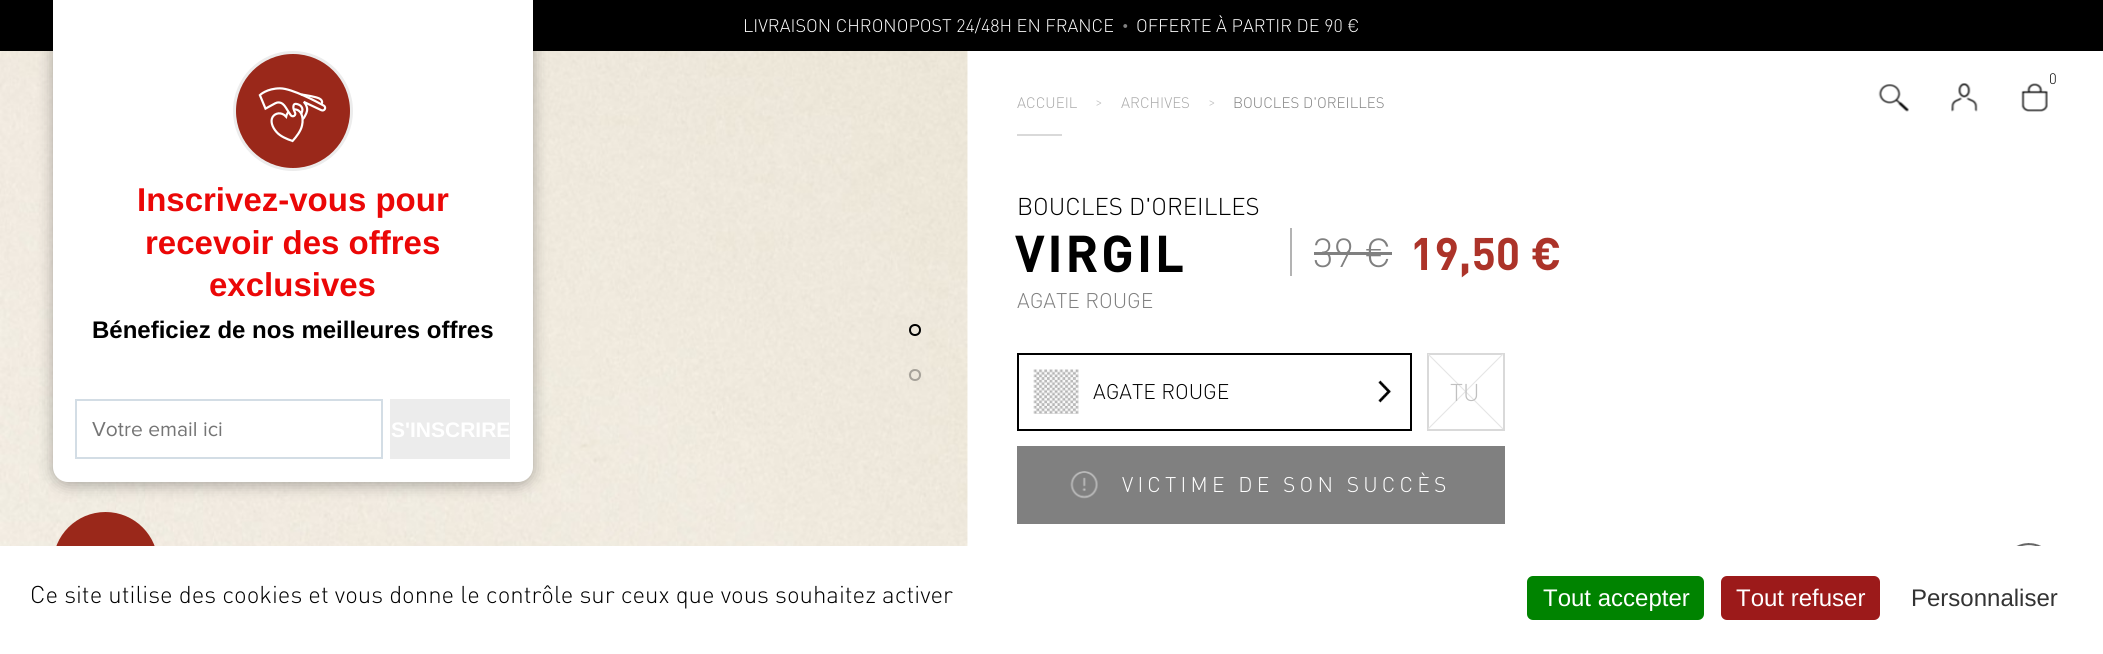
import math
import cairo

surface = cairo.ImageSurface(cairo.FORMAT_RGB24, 2103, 654)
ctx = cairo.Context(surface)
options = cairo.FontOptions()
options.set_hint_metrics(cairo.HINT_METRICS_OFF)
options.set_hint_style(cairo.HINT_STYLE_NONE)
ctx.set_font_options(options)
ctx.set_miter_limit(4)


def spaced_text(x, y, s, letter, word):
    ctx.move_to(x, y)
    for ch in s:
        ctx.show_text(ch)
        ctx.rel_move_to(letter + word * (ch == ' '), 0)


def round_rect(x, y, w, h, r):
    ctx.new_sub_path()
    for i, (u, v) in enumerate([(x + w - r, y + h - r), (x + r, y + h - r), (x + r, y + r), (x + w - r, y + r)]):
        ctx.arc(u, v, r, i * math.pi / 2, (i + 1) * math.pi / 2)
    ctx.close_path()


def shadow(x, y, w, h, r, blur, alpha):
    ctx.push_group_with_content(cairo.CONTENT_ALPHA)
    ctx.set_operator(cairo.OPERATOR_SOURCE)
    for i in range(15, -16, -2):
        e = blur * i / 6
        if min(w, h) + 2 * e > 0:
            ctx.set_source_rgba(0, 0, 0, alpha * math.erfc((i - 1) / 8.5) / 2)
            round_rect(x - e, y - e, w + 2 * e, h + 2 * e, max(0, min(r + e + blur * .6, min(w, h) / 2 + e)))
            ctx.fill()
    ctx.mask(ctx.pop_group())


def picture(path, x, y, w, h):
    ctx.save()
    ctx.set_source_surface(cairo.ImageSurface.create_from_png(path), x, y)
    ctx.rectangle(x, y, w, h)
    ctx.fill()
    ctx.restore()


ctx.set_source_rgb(1, 1, 1)
ctx.paint()
ctx.set_source_rgb(0, 0, 0)
ctx.rectangle(0, 0, 2103, 51)
ctx.fill()
ctx.select_font_face("DIN Light")
ctx.set_font_size(18)
ctx.set_source_rgb(1, 1, 1)
ctx.move_to(743, 32)
ctx.show_text("LIVRAISON CHRONOPOST 24/48H EN FRANCE")
ctx.set_font_size(12)
ctx.set_source_rgb(0.502, 0.502, 0.502)
ctx.move_to(1122, 30)
ctx.show_text("•")
ctx.set_font_size(18)
ctx.set_source_rgb(1, 1, 1)
ctx.move_to(1136, 32)
ctx.show_text("OFFERTE À PARTIR DE 90 €")
picture("img1.png", 2021, 83, 27, 29)
ctx.set_font_size(15)
ctx.set_source_rgb(0, 0, 0)
ctx.move_to(2049, 84)
ctx.show_text("0")
picture("img2.png", 1878, 84, 31, 28)
picture("img3.png", 1951, 83, 27, 29)
picture("img5.png", 0, 51, 968, 495)
ctx.set_source_rgb(0, 0, 0)
shadow(53, -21, 480, 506, 15, 7.5, 0.3)
ctx.set_source_rgb(1, 1, 1)
round_rect(53, -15, 480, 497, 15)
ctx.fill()
ctx.set_source_rgb(0.604, 0.157, 0.102)
ctx.arc(293, 111, 58.5, 0, 2 * math.pi)
ctx.fill_preserve()
ctx.set_source_rgb(0.925, 0.925, 0.925)
ctx.set_line_width(3)
ctx.stroke()
picture("img4.png", 258, 87, 69, 56)
ctx.select_font_face("Liberation Sans", cairo.FONT_SLANT_NORMAL, cairo.FONT_WEIGHT_BOLD)
ctx.set_font_size(33)
ctx.set_source_rgb(0.918, 0.031, 0.031)
ctx.move_to(137, 211)
ctx.show_text("Inscrivez-vous pour")
ctx.move_to(145, 254)
ctx.show_text("recevoir des offres")
ctx.move_to(209, 296)
ctx.show_text("exclusives")
ctx.set_font_size(24)
ctx.set_source_rgb(0, 0, 0)
ctx.move_to(92, 338)
ctx.show_text("Béneficiez de nos meilleures offres")
ctx.rectangle(76, 400, 306, 58)
ctx.set_source_rgb(0.827, 0.867, 0.898)
ctx.set_line_width(2)
ctx.stroke()
ctx.select_font_face("Proxima Nova")
ctx.set_font_size(21)
ctx.set_source_rgb(0.459, 0.459, 0.459)
ctx.move_to(92, 436)
ctx.show_text("Votre email ici")
ctx.set_source_rgb(0.925, 0.925, 0.925)
ctx.rectangle(390, 399, 120, 60)
ctx.fill()
ctx.select_font_face("Liberation Sans", cairo.FONT_SLANT_NORMAL, cairo.FONT_WEIGHT_BOLD)
ctx.set_source_rgb(1, 1, 1)
ctx.move_to(391, 437)
ctx.show_text("S'INSCRIRE")
ctx.set_source_rgb(0.604, 0.157, 0.102)
ctx.new_path()
ctx.arc(105.5, 564.5, 52.5, 0, 2 * math.pi)
ctx.fill()
ctx.arc(915, 330, 5, 0, 2 * math.pi)
ctx.set_source_rgb(0, 0, 0)
ctx.stroke()
ctx.arc(915, 375, 5, 0, 2 * math.pi)
ctx.set_source_rgba(0, 0, 0, 0.3)
ctx.stroke()
ctx.select_font_face("DIN Light")
ctx.set_font_size(15)
ctx.set_source_rgb(0.651, 0.651, 0.651)
ctx.move_to(1017, 108)
ctx.show_text("ACCUEIL")
ctx.set_source_rgb(0.753, 0.753, 0.753)
ctx.move_to(1095, 107)
ctx.show_text(">")
ctx.set_source_rgb(0.651, 0.651, 0.651)
ctx.move_to(1121, 108)
ctx.show_text("ARCHIVES")
ctx.set_source_rgb(0.753, 0.753, 0.753)
ctx.move_to(1208, 107)
ctx.show_text(">")
ctx.set_source_rgb(0.502, 0.502, 0.502)
ctx.move_to(1233, 108)
ctx.show_text("BOUCLES D'OREILLES")
ctx.set_source_rgb(0.851, 0.851, 0.851)
ctx.rectangle(1017, 134, 45, 2)
ctx.fill()
ctx.set_font_size(24)
ctx.set_source_rgb(0, 0, 0)
ctx.move_to(1017, 215)
ctx.show_text("BOUCLES D'OREILLES")
ctx.select_font_face("DIN", cairo.FONT_SLANT_NORMAL, cairo.FONT_WEIGHT_BOLD)
ctx.set_font_size(51)
spaced_text(1015, 272, "VIRGIL", 2.5, 0)
ctx.select_font_face("DIN Light")
ctx.set_font_size(21)
ctx.set_source_rgb(0.502, 0.502, 0.502)
ctx.move_to(1017, 308)
ctx.show_text("AGATE ROUGE")
ctx.set_font_size(40)
ctx.move_to(1313, 267)
ctx.show_text("39 €")
ctx.set_source_rgb(0.702, 0.702, 0.702)
ctx.rectangle(1290, 228, 2, 48)
ctx.fill()
ctx.set_source_rgb(0.502, 0.502, 0.502)
ctx.rectangle(1314, 252, 78, 3)
ctx.fill()
ctx.select_font_face("DIN", cairo.FONT_SLANT_NORMAL, cairo.FONT_WEIGHT_BOLD)
ctx.set_font_size(45)
ctx.set_source_rgb(0.675, 0.2, 0.161)
ctx.move_to(1410, 270)
ctx.show_text("19,50 €")
ctx.rectangle(1018, 354, 393, 76)
ctx.set_source_rgb(0, 0, 0)
ctx.stroke()
picture("img6.png", 1033, 369, 46, 45)
ctx.select_font_face("DIN Light")
ctx.set_font_size(21)
ctx.move_to(1093, 399)
ctx.show_text("AGATE ROUGE")
picture("img7.png", 1378, 380, 14, 23)
ctx.rectangle(1428, 354, 76, 76)
ctx.set_source_rgb(0.851, 0.851, 0.851)
ctx.stroke()
gradient = cairo.LinearGradient(1428, 429, 1503, 354)
gradient.add_color_stop_rgba(0, 0.902, 0.902, 0.902, 0)
gradient.add_color_stop_rgba(0.49, 0.902, 0.902, 0.902, 0)
gradient.add_color_stop_rgba(0.5, 0.902, 0.902, 0.902, 1)
gradient.add_color_stop_rgba(0.51, 0.902, 0.902, 0.902, 0)
gradient.add_color_stop_rgba(1, 0.902, 0.902, 0.902, 0)
ctx.set_source(gradient)
ctx.rectangle(1428, 354, 75, 75)
ctx.fill()
gradient = cairo.LinearGradient(1503, 429, 1428, 354)
gradient.add_color_stop_rgba(0, 0.902, 0.902, 0.902, 0)
gradient.add_color_stop_rgba(0.49, 0.902, 0.902, 0.902, 0)
gradient.add_color_stop_rgba(0.5, 0.902, 0.902, 0.902, 1)
gradient.add_color_stop_rgba(0.51, 0.902, 0.902, 0.902, 0)
gradient.add_color_stop_rgba(1, 0.902, 0.902, 0.902, 0)
ctx.set_source(gradient)
ctx.rectangle(1428, 354, 75, 75)
ctx.fill()
ctx.set_font_size(24)
ctx.set_source_rgb(0.753, 0.753, 0.753)
ctx.move_to(1450, 401)
ctx.show_text("TU")
ctx.set_source_rgb(0.502, 0.502, 0.502)
ctx.rectangle(1017, 446, 488, 78)
ctx.fill()
picture("img8.png", 1070, 471, 28, 28)
ctx.set_font_size(21)
ctx.set_source_rgb(1, 1, 1)
spaced_text(1122, 492, "VICTIME DE SON SUCCÈS", 4.2, 0)
picture("img9.png", 2016, 543, 25, 3)
ctx.rectangle(53, 546, 105, 71)
ctx.fill()
ctx.set_font_size(24)
ctx.set_source_rgb(0, 0, 0)
ctx.move_to(30, 603)
ctx.show_text("Ce site utilise des cookies et vous donne le contrôle sur ceux que vous souhaitez activer")
ctx.set_source_rgb(0, 0.514, 0)
round_rect(1527, 576, 177, 44, 6)
ctx.fill()
ctx.select_font_face("Liberation Sans")
ctx.set_source_rgb(1, 1, 1)
ctx.move_to(1543, 606)
ctx.show_text("Tout accepter")
ctx.set_source_rgb(0.612, 0.102, 0.102)
round_rect(1721, 576, 159, 44, 6)
ctx.fill()
ctx.set_source_rgb(1, 1, 1)
ctx.move_to(1736, 606)
ctx.show_text("Tout refuser")
ctx.set_source_rgb(0.2, 0.2, 0.2)
ctx.move_to(1911, 606)
ctx.show_text("Personnaliser")
surface.write_to_png("page.png")
